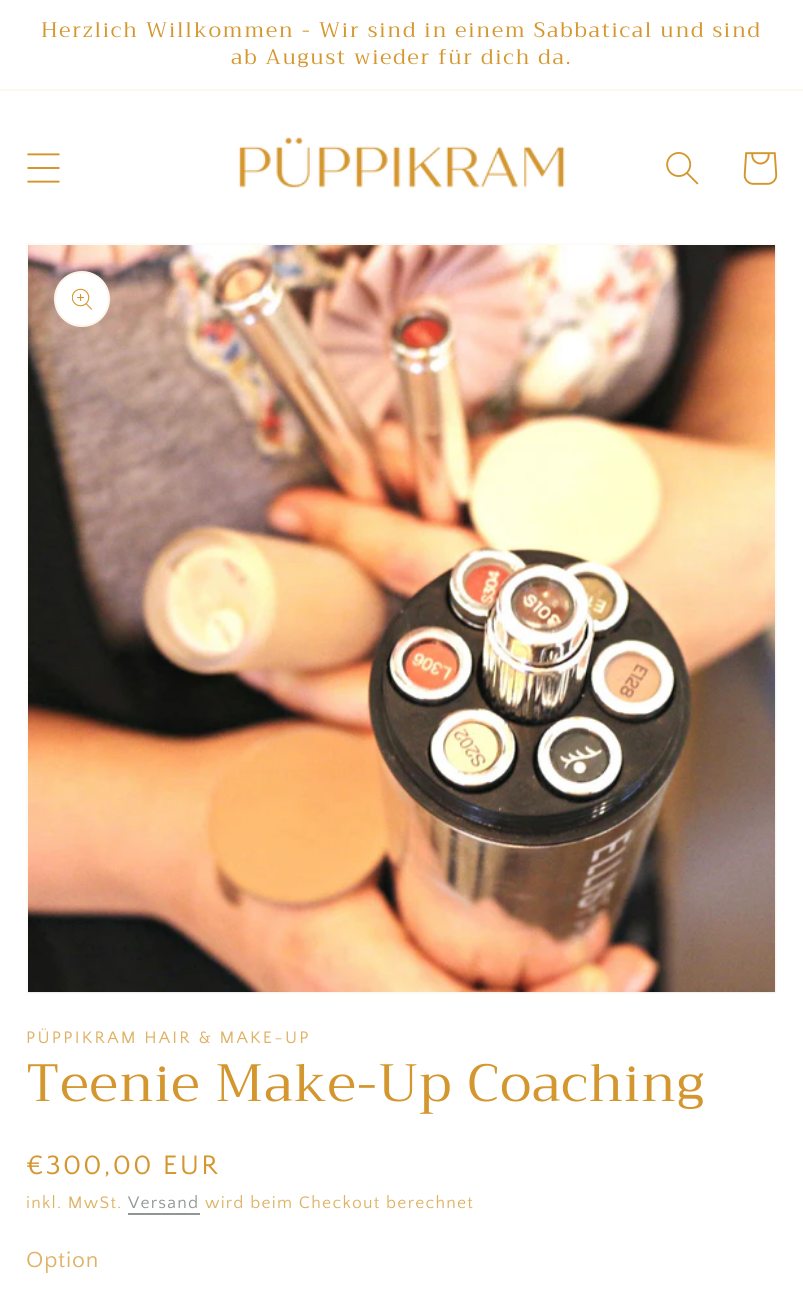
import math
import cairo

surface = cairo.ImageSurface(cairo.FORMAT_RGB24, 803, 1289)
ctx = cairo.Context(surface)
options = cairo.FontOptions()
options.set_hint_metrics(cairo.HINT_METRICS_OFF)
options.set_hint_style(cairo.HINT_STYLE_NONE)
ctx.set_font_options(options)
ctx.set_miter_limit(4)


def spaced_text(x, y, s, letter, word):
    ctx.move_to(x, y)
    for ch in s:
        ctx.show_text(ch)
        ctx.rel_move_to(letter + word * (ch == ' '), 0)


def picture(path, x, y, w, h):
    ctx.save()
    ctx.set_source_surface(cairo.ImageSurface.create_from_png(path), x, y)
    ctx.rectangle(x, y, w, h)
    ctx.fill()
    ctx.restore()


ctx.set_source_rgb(1, 1, 1)
ctx.paint()
ctx.set_source_rgb(0.988, 0.969, 0.933)
ctx.rectangle(0, 89, 803, 2)
ctx.fill()
ctx.select_font_face("Trirong")
ctx.set_font_size(21)
ctx.set_source_rgb(0.831, 0.592, 0.184)
spaced_text(41, 37, "Herzlich Willkommen - Wir sind in einem Sabbatical und sind", 1.75, 0)
spaced_text(231, 64, "ab August wieder für dich da.", 1.75, 0)
picture("img1.png", 27, 153, 33, 30)
picture("img2.png", 238, 137, 327, 51)
picture("img3.png", 666, 152, 33, 33)
picture("img4.png", 743, 152, 35, 33)
ctx.rectangle(27, 244, 749, 749)
ctx.set_source_rgb(0.992, 0.984, 0.969)
ctx.stroke()
picture("img5.png", 28, 245, 748, 748)
ctx.set_source_rgb(1, 1, 1)
ctx.arc(82, 299, 28, 0, 2 * math.pi)
ctx.fill()
ctx.arc(82, 299, 27, 0, 2 * math.pi)
ctx.set_source_rgba(0.831, 0.592, 0.184, 0.1)
ctx.stroke()
picture("img6.png", 72, 288, 20, 22)
ctx.select_font_face("Quattrocento Sans")
ctx.set_font_size(17.5)
ctx.set_source_rgb(0.875, 0.694, 0.388)
spaced_text(26, 1043, "PÜPPIKRAM HAIR & MAKE-UP", 2.25, 0)
ctx.select_font_face("Trirong")
ctx.set_font_size(52.5)
ctx.set_source_rgb(0.831, 0.592, 0.184)
spaced_text(26, 1101, "Teenie Make-Up Coaching", 1.05, 0)
ctx.select_font_face("Quattrocento Sans")
ctx.set_font_size(28)
spaced_text(26, 1174, "€300,00 EUR", 2.25, 0)
ctx.set_font_size(17.5)
ctx.set_source_rgb(0.875, 0.694, 0.388)
spaced_text(26, 1208, "inkl. MwSt.", 1.25, 0)
ctx.set_source_rgb(0.561, 0.588, 0.584)
spaced_text(128, 1208, "Versand", 1.25, 0)
ctx.rectangle(128, 1213, 72, 2)
ctx.fill()
ctx.set_source_rgb(0.875, 0.694, 0.388)
spaced_text(205, 1208, "wird beim Checkout berechnet", 1.25, 0)
ctx.set_font_size(23)
spaced_text(26, 1267, "Option", 0.75, 0)
surface.write_to_png("page.png")
